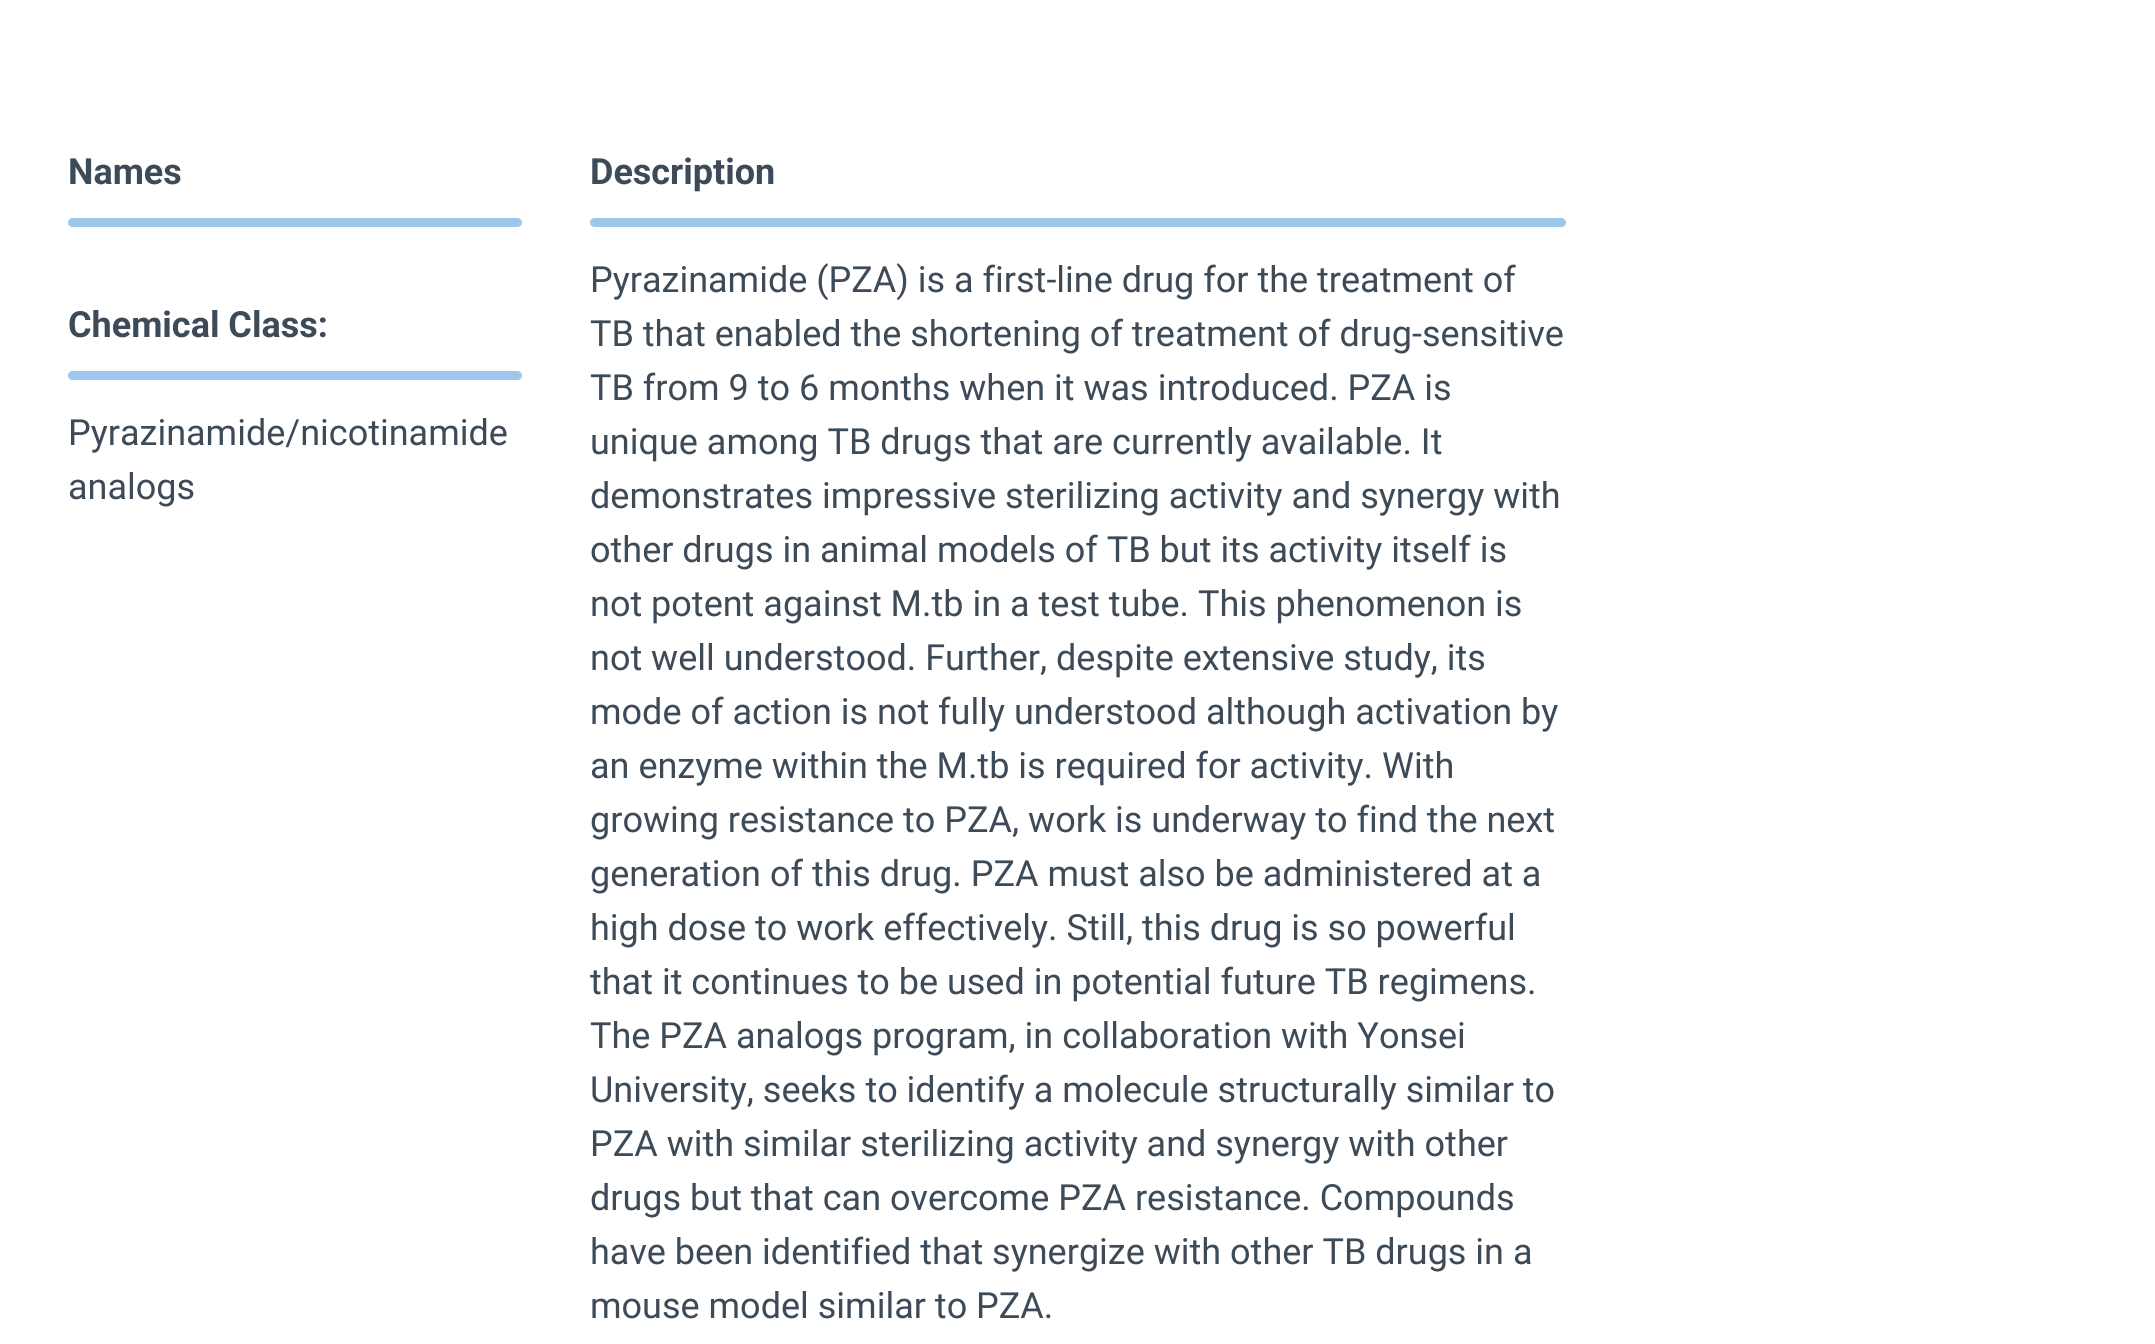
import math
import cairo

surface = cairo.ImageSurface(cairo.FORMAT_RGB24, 2155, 1344)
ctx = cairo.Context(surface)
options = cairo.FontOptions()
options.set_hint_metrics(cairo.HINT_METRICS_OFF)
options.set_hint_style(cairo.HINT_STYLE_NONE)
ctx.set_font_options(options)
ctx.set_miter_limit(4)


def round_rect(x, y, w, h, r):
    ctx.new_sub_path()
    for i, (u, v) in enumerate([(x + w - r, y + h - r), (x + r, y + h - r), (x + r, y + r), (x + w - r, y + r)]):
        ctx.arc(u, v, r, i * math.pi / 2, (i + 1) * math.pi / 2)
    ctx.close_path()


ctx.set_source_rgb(1, 1, 1)
ctx.paint()
ctx.select_font_face("Roboto", cairo.FONT_SLANT_NORMAL, cairo.FONT_WEIGHT_BOLD)
ctx.set_font_size(36)
ctx.set_source_rgb(0.239, 0.29, 0.341)
ctx.move_to(68, 184)
ctx.show_text("Names")
ctx.set_source_rgb(0.62, 0.78, 0.922)
round_rect(68, 218, 454, 9, 4.5)
ctx.fill()
ctx.set_source_rgb(0.239, 0.29, 0.341)
ctx.move_to(68, 337)
ctx.show_text("Chemical Class:")
ctx.set_source_rgb(0.62, 0.78, 0.922)
round_rect(68, 371, 454, 9, 4.5)
ctx.fill()
ctx.select_font_face("Roboto")
ctx.set_source_rgb(0.239, 0.29, 0.341)
ctx.move_to(68, 445)
ctx.show_text("Pyrazinamide/nicotinamide")
ctx.move_to(68, 499)
ctx.show_text("analogs")
ctx.select_font_face("Roboto", cairo.FONT_SLANT_NORMAL, cairo.FONT_WEIGHT_BOLD)
ctx.move_to(590, 184)
ctx.show_text("Description")
ctx.set_source_rgb(0.62, 0.78, 0.922)
round_rect(590, 218, 976, 9, 4.5)
ctx.fill()
ctx.select_font_face("Roboto")
ctx.set_source_rgb(0.239, 0.29, 0.341)
ctx.move_to(590, 292)
ctx.show_text("Pyrazinamide (PZA) is a first-line drug for the treatment of")
ctx.move_to(590, 346)
ctx.show_text("TB that enabled the shortening of treatment of drug-sensitive")
ctx.move_to(590, 400)
ctx.show_text("TB from 9 to 6 months when it was introduced. PZA is")
ctx.move_to(590, 454)
ctx.show_text("unique among TB drugs that are currently available. It")
ctx.move_to(590, 508)
ctx.show_text("demonstrates impressive sterilizing activity and synergy with")
ctx.move_to(590, 562)
ctx.show_text("other drugs in animal models of TB but its activity itself is")
ctx.move_to(590, 616)
ctx.show_text("not potent against M.tb in a test tube. This phenomenon is")
ctx.move_to(590, 670)
ctx.show_text("not well understood. Further, despite extensive study, its")
ctx.move_to(590, 724)
ctx.show_text("mode of action is not fully understood although activation by")
ctx.move_to(590, 778)
ctx.show_text("an enzyme within the M.tb is required for activity. With")
ctx.move_to(590, 832)
ctx.show_text("growing resistance to PZA, work is underway to find the next")
ctx.move_to(590, 886)
ctx.show_text("generation of this drug. PZA must also be administered at a")
ctx.move_to(590, 940)
ctx.show_text("high dose to work effectively. Still, this drug is so powerful")
ctx.move_to(590, 994)
ctx.show_text("that it continues to be used in potential future TB regimens.")
ctx.move_to(590, 1048)
ctx.show_text("The PZA analogs program, in collaboration with Yonsei")
ctx.move_to(590, 1102)
ctx.show_text("University, seeks to identify a molecule structurally similar to")
ctx.move_to(590, 1156)
ctx.show_text("PZA with similar sterilizing activity and synergy with other")
ctx.move_to(590, 1210)
ctx.show_text("drugs but that can overcome PZA resistance. Compounds")
ctx.move_to(590, 1264)
ctx.show_text("have been identified that synergize with other TB drugs in a")
ctx.move_to(590, 1318)
ctx.show_text("mouse model similar to PZA.")
surface.write_to_png("page.png")
